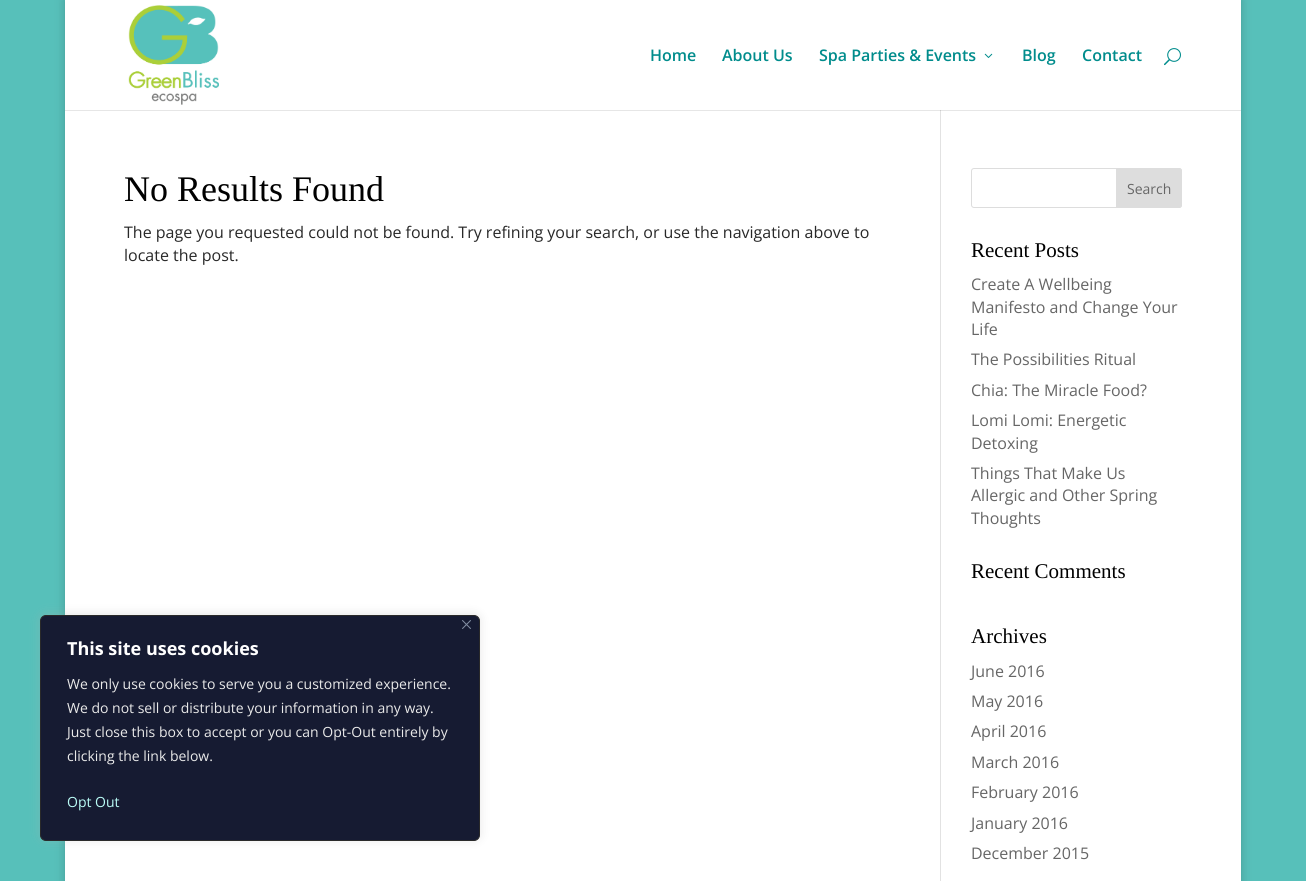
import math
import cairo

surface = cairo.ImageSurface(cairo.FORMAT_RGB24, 1306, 881)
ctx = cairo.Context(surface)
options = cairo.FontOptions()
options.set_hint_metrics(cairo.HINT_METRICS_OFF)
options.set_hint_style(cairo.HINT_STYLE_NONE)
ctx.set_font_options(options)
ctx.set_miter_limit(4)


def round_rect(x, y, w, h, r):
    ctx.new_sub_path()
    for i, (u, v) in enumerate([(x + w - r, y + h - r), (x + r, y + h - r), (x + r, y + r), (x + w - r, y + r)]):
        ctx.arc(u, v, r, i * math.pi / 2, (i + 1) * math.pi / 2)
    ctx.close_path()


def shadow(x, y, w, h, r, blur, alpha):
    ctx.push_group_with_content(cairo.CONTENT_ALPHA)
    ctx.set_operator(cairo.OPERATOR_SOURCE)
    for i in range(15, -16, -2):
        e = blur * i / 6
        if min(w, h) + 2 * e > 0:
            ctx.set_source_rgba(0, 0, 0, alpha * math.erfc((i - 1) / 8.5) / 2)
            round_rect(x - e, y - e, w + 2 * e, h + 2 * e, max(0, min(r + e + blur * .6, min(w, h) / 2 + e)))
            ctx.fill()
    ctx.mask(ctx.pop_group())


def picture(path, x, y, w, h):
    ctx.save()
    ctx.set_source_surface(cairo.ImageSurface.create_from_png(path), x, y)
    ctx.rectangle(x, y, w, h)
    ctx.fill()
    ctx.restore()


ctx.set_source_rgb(0.341, 0.753, 0.729)
ctx.paint()
ctx.set_source_rgb(0, 0, 0)
shadow(65, 0, 1176, 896, 0, 5, 0.2)
ctx.set_source_rgb(1, 1, 1)
ctx.rectangle(65, 0, 1176, 110)
ctx.fill()
picture("img1.png", 128, 5, 91, 100)
ctx.select_font_face("Open Sans SemiBold")
ctx.set_font_size(16)
ctx.set_source_rgb(0, 0.549, 0.549)
ctx.move_to(650, 61)
ctx.show_text("Home")
ctx.move_to(722, 61)
ctx.show_text("About Us")
ctx.move_to(819, 61)
ctx.show_text("Spa Parties & Events")
picture("img2.png", 984, 53, 9, 5)
ctx.move_to(1022, 61)
ctx.show_text("Blog")
ctx.move_to(1082, 61)
ctx.show_text("Contact")
picture("img3.png", 1164, 48, 17, 18)
ctx.set_source_rgb(1, 1, 1)
ctx.rectangle(65, 111, 1176, 770)
ctx.fill()
ctx.set_source_rgb(0.902, 0.902, 0.902)
ctx.rectangle(65, 110, 1176, 1)
ctx.fill()
ctx.set_source_rgb(0.886, 0.886, 0.886)
ctx.rectangle(940, 110, 1, 771)
ctx.fill()
ctx.set_source_rgb(0.796, 0.796, 0.796)
ctx.rectangle(940, 110, 1, 1)
ctx.fill()
ctx.select_font_face("Liberation Serif")
ctx.set_font_size(36)
ctx.set_source_rgb(0, 0, 0)
ctx.move_to(124, 201)
ctx.show_text("No Results Found")
ctx.select_font_face("Open Sans")
ctx.set_font_size(16)
ctx.set_source_rgb(0.157, 0.157, 0.157)
ctx.move_to(124, 238)
ctx.show_text("The page you requested could not be found. Try refining your search, or use the navigation above to")
ctx.move_to(124, 261)
ctx.show_text("locate the post.")
round_rect(971.5, 168.5, 210, 39, 2.5)
ctx.set_source_rgb(0.867, 0.867, 0.867)
ctx.set_line_width(1)
ctx.stroke()
ctx.new_path()
ctx.move_to(1116.5, 168.5)
ctx.line_to(1179, 168.5)
ctx.curve_to(1180.5, 168.5, 1181.5, 169.5, 1181.5, 171)
ctx.line_to(1181.5, 205)
ctx.curve_to(1181.5, 206.5, 1180.5, 207.5, 1179, 207.5)
ctx.line_to(1116.5, 207.5)
ctx.close_path()
ctx.fill_preserve()
ctx.stroke()
ctx.set_font_size(14)
ctx.set_source_rgb(0.4, 0.4, 0.4)
ctx.move_to(1127, 194)
ctx.show_text("Search")
ctx.select_font_face("Liberation Serif")
ctx.set_font_size(21)
ctx.set_source_rgb(0, 0, 0)
ctx.move_to(971, 257)
ctx.show_text("Recent Posts")
ctx.select_font_face("Open Sans")
ctx.set_font_size(16)
ctx.set_source_rgb(0.4, 0.4, 0.4)
ctx.move_to(971, 290)
ctx.show_text("Create A Wellbeing")
ctx.move_to(971, 313)
ctx.show_text("Manifesto and Change Your")
ctx.move_to(971, 335)
ctx.show_text("Life")
ctx.move_to(971, 365)
ctx.show_text("The Possibilities Ritual")
ctx.move_to(971, 396)
ctx.show_text("Chia: The Miracle Food?")
ctx.move_to(971, 426)
ctx.show_text("Lomi Lomi: Energetic")
ctx.move_to(971, 449)
ctx.show_text("Detoxing")
ctx.move_to(971, 479)
ctx.show_text("Things That Make Us")
ctx.move_to(971, 501)
ctx.show_text("Allergic and Other Spring")
ctx.move_to(971, 524)
ctx.show_text("Thoughts")
ctx.select_font_face("Liberation Serif")
ctx.set_font_size(21)
ctx.set_source_rgb(0, 0, 0)
ctx.move_to(971, 578)
ctx.show_text("Recent Comments")
ctx.move_to(971, 643)
ctx.show_text("Archives")
ctx.select_font_face("Open Sans")
ctx.set_font_size(16)
ctx.set_source_rgb(0.4, 0.4, 0.4)
ctx.move_to(971, 677)
ctx.show_text("June 2016")
ctx.move_to(971, 707)
ctx.show_text("May 2016")
ctx.move_to(971, 737)
ctx.show_text("April 2016")
ctx.move_to(971, 768)
ctx.show_text("March 2016")
ctx.move_to(971, 798)
ctx.show_text("February 2016")
ctx.move_to(971, 829)
ctx.show_text("January 2016")
ctx.move_to(971, 859)
ctx.show_text("December 2015")
ctx.set_source_rgb(0.675, 0.671, 0.671)
shadow(40, 614, 440, 226, 6, 5, 0.3)
ctx.set_source_rgb(0.086, 0.106, 0.196)
round_rect(40.5, 615.5, 439, 225, 5.5)
ctx.fill_preserve()
ctx.set_source_rgb(0.165, 0.165, 0.165)
ctx.stroke()
picture("img4.png", 462, 620, 9, 9)
ctx.select_font_face("Open Sans", cairo.FONT_SLANT_NORMAL, cairo.FONT_WEIGHT_BOLD)
ctx.set_font_size(18)
ctx.set_source_rgb(1, 1, 1)
ctx.move_to(67, 655)
ctx.show_text("This site uses cookies")
ctx.select_font_face("Open Sans")
ctx.set_font_size(14)
ctx.set_source_rgb(0.914, 0.914, 0.914)
ctx.move_to(67, 689)
ctx.show_text("We only use cookies to serve you a customized experience.")
ctx.move_to(67, 713)
ctx.show_text("We do not sell or distribute your information in any way.")
ctx.move_to(67, 737)
ctx.show_text("Just close this box to accept or you can Opt-Out entirely by")
ctx.move_to(67, 761)
ctx.show_text("clicking the link below.")
ctx.set_source_rgb(0.729, 0.988, 0.965)
ctx.move_to(67, 807)
ctx.show_text("Opt Out")
surface.write_to_png("page.png")
